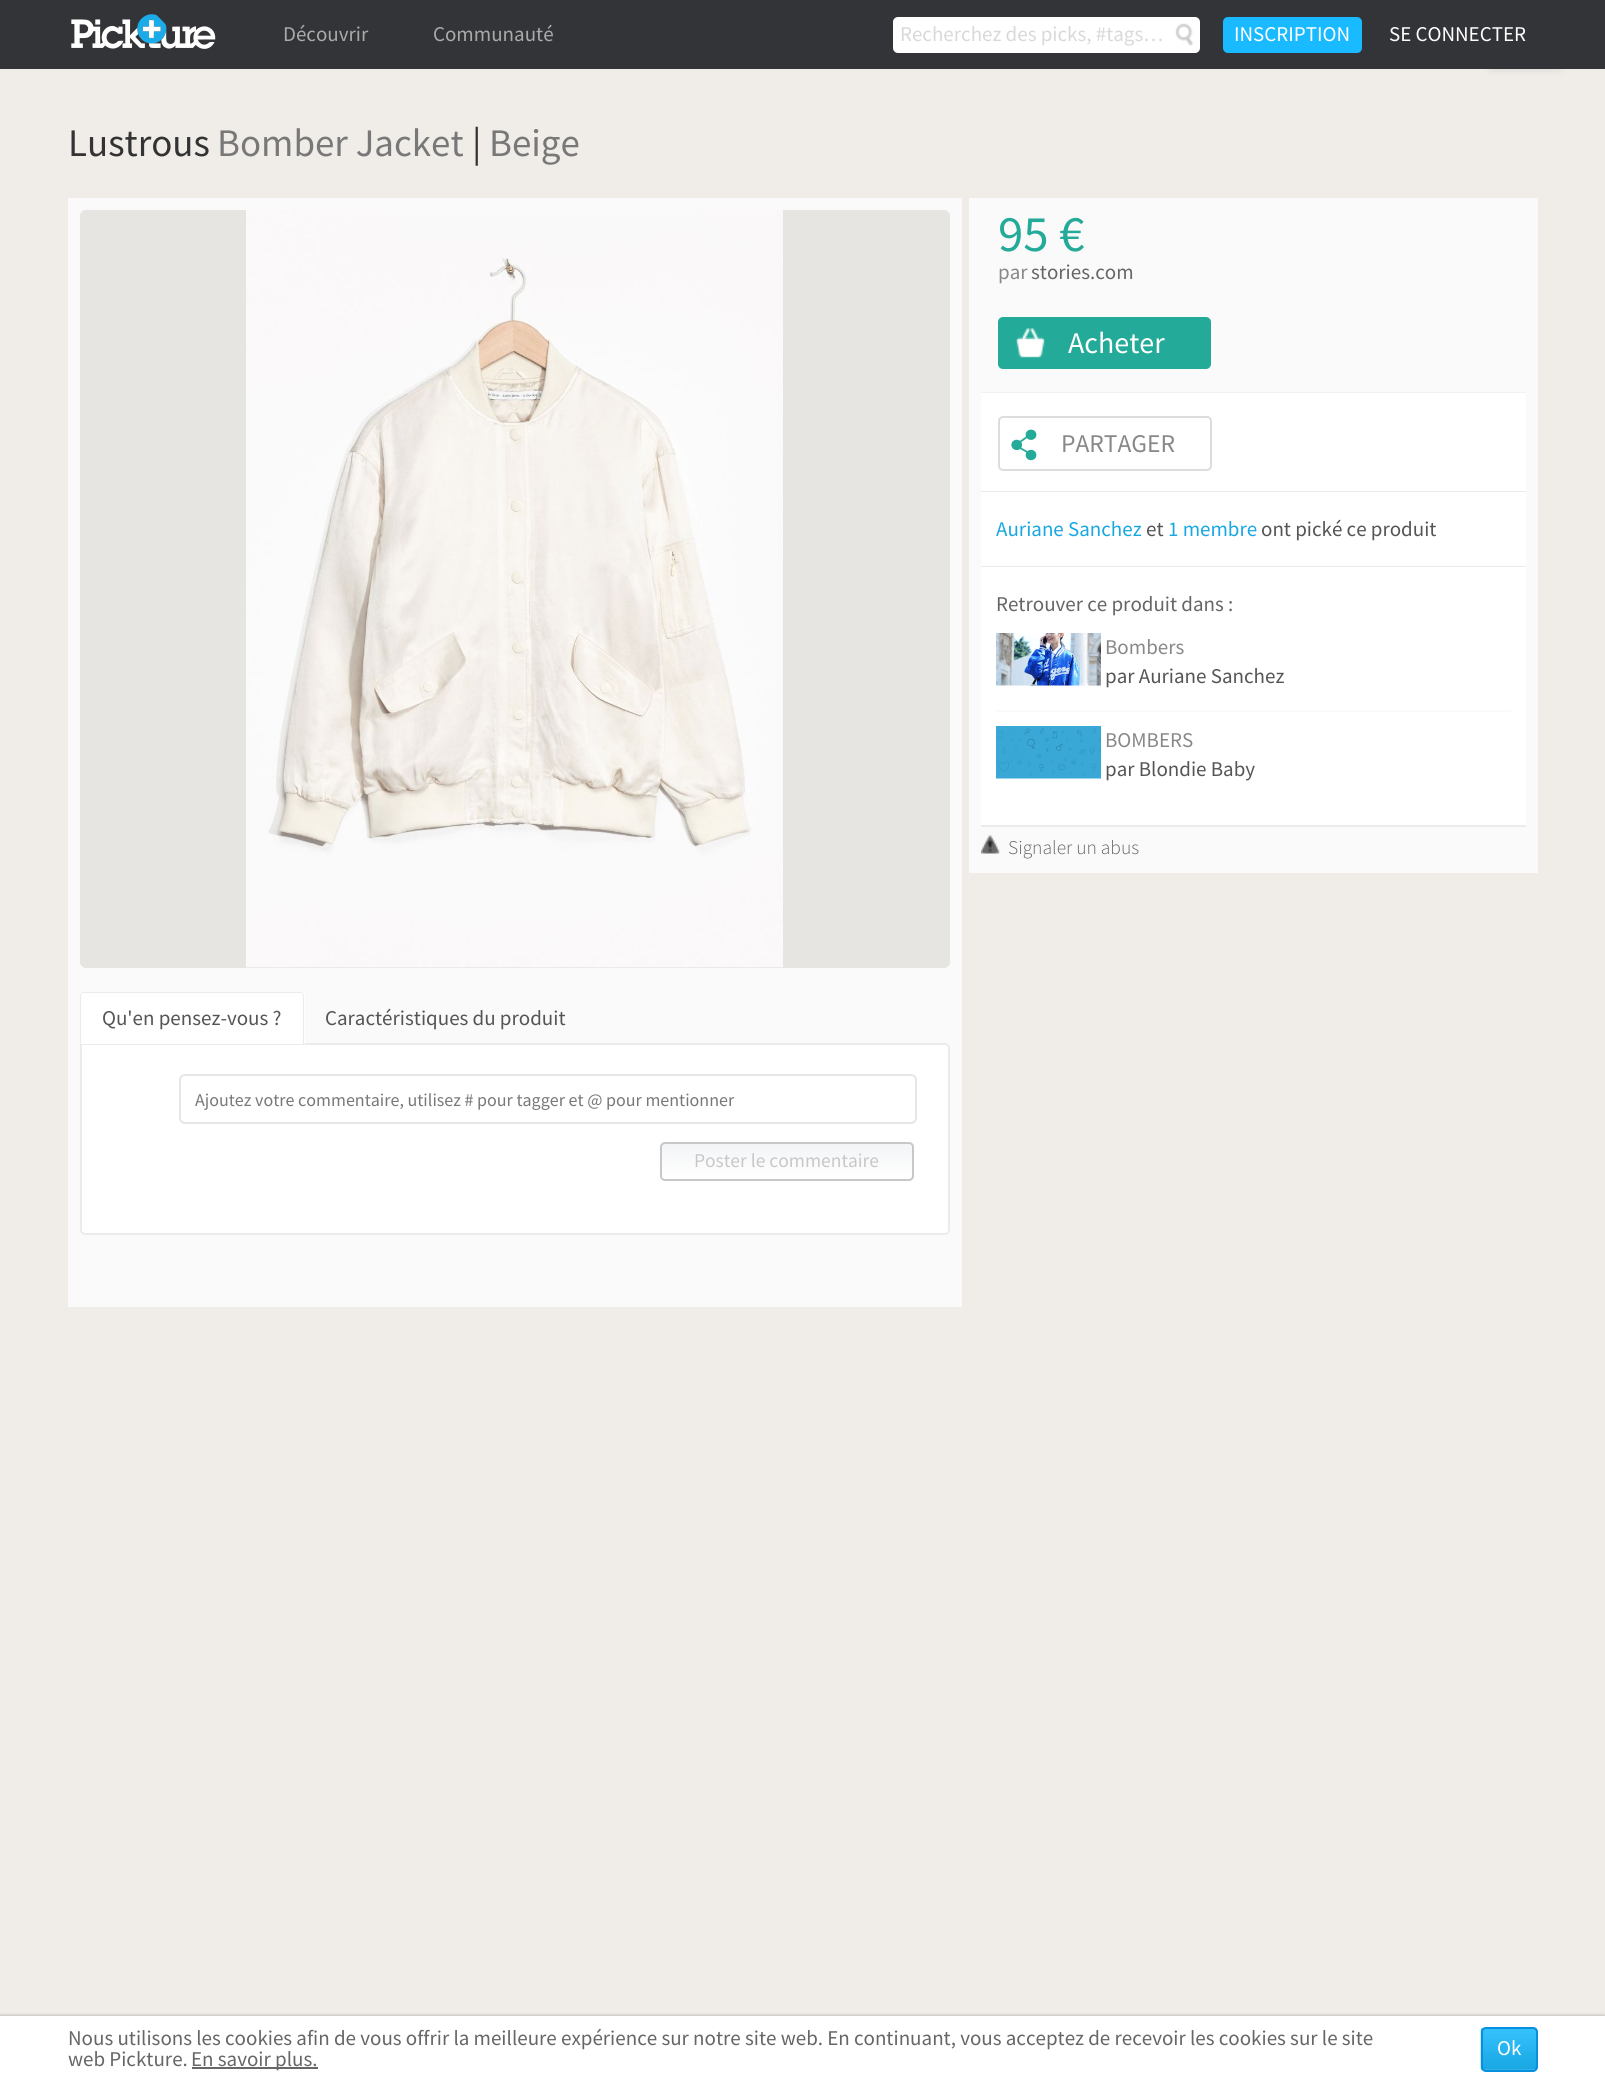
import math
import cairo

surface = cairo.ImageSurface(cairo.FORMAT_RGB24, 1605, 2082)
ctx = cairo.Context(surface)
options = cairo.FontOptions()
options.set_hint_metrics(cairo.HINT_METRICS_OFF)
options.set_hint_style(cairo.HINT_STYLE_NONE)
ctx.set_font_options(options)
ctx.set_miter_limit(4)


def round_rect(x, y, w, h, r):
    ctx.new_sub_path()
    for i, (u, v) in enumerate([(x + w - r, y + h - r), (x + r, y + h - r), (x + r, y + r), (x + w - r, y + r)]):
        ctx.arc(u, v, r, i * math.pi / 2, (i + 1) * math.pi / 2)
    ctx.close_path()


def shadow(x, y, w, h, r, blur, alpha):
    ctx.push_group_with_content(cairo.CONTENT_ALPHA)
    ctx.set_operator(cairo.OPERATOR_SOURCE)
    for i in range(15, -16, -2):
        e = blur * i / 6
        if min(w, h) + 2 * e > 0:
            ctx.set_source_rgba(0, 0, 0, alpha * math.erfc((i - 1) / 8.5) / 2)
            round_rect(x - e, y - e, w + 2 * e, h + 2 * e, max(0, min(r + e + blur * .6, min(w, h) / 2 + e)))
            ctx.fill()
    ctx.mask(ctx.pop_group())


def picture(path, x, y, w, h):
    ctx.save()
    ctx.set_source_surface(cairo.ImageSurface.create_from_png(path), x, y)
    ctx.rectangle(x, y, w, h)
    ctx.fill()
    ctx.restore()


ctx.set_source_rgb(0.941, 0.929, 0.914)
ctx.paint()
ctx.set_source_rgb(0.8, 0.8, 0.8)
shadow(1491, 0, 68, 68, 0, 4.5, 1)
ctx.set_source_rgb(0.2, 0.204, 0.22)
ctx.rectangle(0, 0, 1605, 69)
ctx.fill()
picture("img1.png", 71, 14, 145, 35)
ctx.select_font_face("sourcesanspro")
ctx.set_font_size(21)
ctx.set_source_rgb(0.667, 0.667, 0.667)
ctx.move_to(283, 41)
ctx.show_text("Découvrir")
ctx.move_to(433, 41)
ctx.show_text("Communauté")
ctx.set_source_rgb(1, 1, 1)
round_rect(893, 17, 307, 36, 5)
ctx.fill()
ctx.set_source_rgb(0.851, 0.851, 0.851)
ctx.move_to(900, 41)
ctx.show_text("Recherchez des picks, #tags…")
picture("img2.png", 1175, 23, 18, 23)
ctx.set_source_rgb(0.098, 0.729, 1)
round_rect(1223, 17, 139, 36, 5)
ctx.fill()
ctx.set_source_rgb(1, 1, 1)
ctx.move_to(1234, 41)
ctx.show_text("INSCRIPTION")
ctx.move_to(1389, 41)
ctx.show_text("SE CONNECTER")
ctx.set_font_size(39)
ctx.set_source_rgb(0.2, 0.2, 0.2)
ctx.move_to(68, 156)
ctx.show_text("Lustrous")
ctx.set_source_rgb(0.471, 0.471, 0.471)
ctx.move_to(217, 156)
ctx.show_text("Bomber Jacket")
ctx.set_source_rgb(0.2, 0.2, 0.2)
ctx.move_to(472, 156)
ctx.show_text("|")
ctx.set_source_rgb(0.471, 0.471, 0.471)
ctx.move_to(489, 156)
ctx.show_text("Beige")
ctx.set_source_rgb(0.98, 0.98, 0.98)
ctx.rectangle(969, 198, 569, 675)
ctx.fill()
ctx.set_font_size(51)
ctx.set_source_rgb(0.141, 0.667, 0.596)
ctx.move_to(998, 251)
ctx.show_text("95 €")
ctx.set_font_size(21)
ctx.set_source_rgb(0.533, 0.533, 0.533)
ctx.move_to(998, 279)
ctx.show_text("par")
ctx.set_source_rgb(0.4, 0.4, 0.4)
ctx.move_to(1031, 279)
ctx.show_text("stories.com")
ctx.set_source_rgb(0.141, 0.667, 0.596)
round_rect(998, 317, 213, 52, 5)
ctx.fill()
picture("img3.png", 1016, 328, 29, 30)
ctx.set_font_size(30)
ctx.set_source_rgb(1, 1, 1)
ctx.move_to(1068, 353)
ctx.show_text("Acheter")
ctx.set_source_rgb(0.949, 0.949, 0.949)
ctx.rectangle(981, 392, 545, 1)
ctx.fill()
ctx.set_source_rgb(1, 1, 1)
ctx.rectangle(981, 393, 545, 98)
ctx.fill()
ctx.set_source_rgb(0.918, 0.918, 0.918)
ctx.rectangle(981, 491, 545, 1)
ctx.fill()
picture("img4.png", 1011, 429, 26, 32)
round_rect(999, 417, 212, 53, 4)
ctx.set_source_rgb(0.867, 0.867, 0.867)
ctx.stroke()
ctx.set_font_size(25.5)
ctx.set_source_rgb(0.533, 0.533, 0.533)
ctx.move_to(1061, 452)
ctx.show_text("PARTAGER")
ctx.set_source_rgb(1, 1, 1)
ctx.rectangle(981, 492, 545, 74)
ctx.fill()
ctx.set_source_rgb(0.918, 0.918, 0.918)
ctx.rectangle(981, 566, 545, 1)
ctx.fill()
ctx.set_font_size(21)
ctx.set_source_rgb(0.094, 0.655, 0.89)
ctx.move_to(996, 536)
ctx.show_text("Auriane Sanchez")
ctx.set_source_rgb(0.333, 0.333, 0.333)
ctx.move_to(1146, 536)
ctx.show_text("et")
ctx.set_source_rgb(0.094, 0.655, 0.89)
ctx.move_to(1168, 536)
ctx.show_text("1 membre")
ctx.set_source_rgb(0.333, 0.333, 0.333)
ctx.move_to(1261, 536)
ctx.show_text("ont pické ce produit")
ctx.set_source_rgb(1, 1, 1)
ctx.rectangle(981, 567, 545, 258)
ctx.fill()
ctx.set_source_rgb(0.918, 0.918, 0.918)
ctx.rectangle(981, 825, 545, 2)
ctx.fill()
ctx.set_source_rgb(0.4, 0.4, 0.4)
ctx.move_to(996, 611)
ctx.show_text("Retrouver ce produit dans :")
ctx.set_source_rgb(0.98, 0.98, 0.98)
ctx.rectangle(996, 710, 515, 2)
ctx.fill()
picture("img5.png", 996, 633, 105, 53)
ctx.set_source_rgb(0.533, 0.533, 0.533)
ctx.move_to(1105, 654)
ctx.show_text("Bombers")
ctx.set_source_rgb(0.333, 0.333, 0.333)
ctx.move_to(1105, 683)
ctx.show_text("par Auriane Sanchez")
picture("img6.png", 996, 726, 105, 53)
ctx.set_source_rgb(0.533, 0.533, 0.533)
ctx.move_to(1105, 747)
ctx.show_text("BOMBERS")
ctx.set_source_rgb(0.333, 0.333, 0.333)
ctx.move_to(1105, 776)
ctx.show_text("par Blondie Baby")
picture("img7.png", 981, 835, 19, 19)
ctx.select_font_face("sourcesanspro Light")
ctx.set_font_size(19.5)
ctx.set_source_rgb(0.4, 0.4, 0.4)
ctx.move_to(1008, 854)
ctx.show_text("Signaler un abus")
ctx.set_source_rgb(0.98, 0.98, 0.98)
ctx.rectangle(68, 198, 894, 1109)
ctx.fill()
ctx.set_source_rgb(0.906, 0.898, 0.886)
round_rect(80, 210, 870, 758, 6)
ctx.fill()
picture("img8.png", 246, 210, 537, 758)
ctx.set_source_rgb(1, 1, 1)
ctx.new_path()
ctx.move_to(81, 1044)
ctx.line_to(945, 1044)
ctx.curve_to(947, 1044, 949, 1046, 949, 1048)
ctx.line_to(949, 1230)
ctx.curve_to(949, 1232, 947, 1234, 945, 1234)
ctx.line_to(85, 1234)
ctx.curve_to(83, 1234, 81, 1232, 81, 1230)
ctx.close_path()
ctx.fill_preserve()
ctx.set_source_rgb(0.918, 0.918, 0.918)
ctx.stroke()
ctx.set_source_rgb(1, 1, 1)
ctx.new_path()
ctx.move_to(85, 992)
ctx.line_to(300, 992)
ctx.curve_to(303, 992, 305, 994, 305, 997)
ctx.line_to(305, 1044)
ctx.line_to(80, 1044)
ctx.line_to(80, 997)
ctx.curve_to(80, 994, 82, 992, 85, 992)
ctx.close_path()
ctx.fill()
ctx.set_source_rgb(0.918, 0.918, 0.918)
ctx.set_fill_rule(cairo.FILL_RULE_EVEN_ODD)
ctx.new_path()
ctx.move_to(84, 992)
ctx.line_to(300, 992)
ctx.curve_to(302, 992, 304, 994, 304, 996)
ctx.line_to(304, 1044)
ctx.line_to(80, 1044)
ctx.line_to(80, 996)
ctx.curve_to(80, 994, 82, 992, 84, 992)
ctx.close_path()
ctx.move_to(84, 993)
ctx.line_to(300, 993)
ctx.curve_to(302, 993, 303, 994, 303, 996)
ctx.line_to(303, 1044)
ctx.line_to(81, 1044)
ctx.line_to(81, 996)
ctx.curve_to(81, 994, 82, 993, 84, 993)
ctx.close_path()
ctx.fill()
ctx.select_font_face("sourcesanspro")
ctx.set_font_size(21)
ctx.set_source_rgb(0.333, 0.333, 0.333)
ctx.move_to(102, 1025)
ctx.show_text("Qu'en pensez-vous ?")
ctx.move_to(325, 1025)
ctx.show_text("Caractéristiques du produit")
round_rect(180, 1075, 736, 48, 5)
ctx.set_source_rgb(0.902, 0.902, 0.902)
ctx.stroke()
ctx.set_font_size(18)
ctx.set_source_rgb(0.471, 0.471, 0.471)
ctx.move_to(195, 1106)
ctx.show_text("Ajoutez votre commentaire, utilisez # pour tagger et @ pour mentionner")
ctx.save()
ctx.set_fill_rule(cairo.FILL_RULE_WINDING)
round_rect(660, 1142, 254, 39, 5)
ctx.clip()
gradient = cairo.LinearGradient(787, 1143, 787, 1179)
gradient.add_color_stop_rgba(0.01, 0.953, 0.957, 0.965, 1)
gradient.add_color_stop_rgba(1, 1, 1, 1, 1)
ctx.set_source(gradient)
ctx.rectangle(660, 1143, 254, 36)
ctx.fill()
ctx.restore()
round_rect(661, 1143, 252, 37, 4)
ctx.set_source_rgb(0.784, 0.784, 0.784)
ctx.stroke()
ctx.set_font_size(19.5)
ctx.move_to(694, 1167)
ctx.show_text("Poster le commentaire")
ctx.set_source_rgb(0, 0, 0)
shadow(0, 2016, 1605, 66, 0, 2, 0.3)
ctx.set_source_rgb(1, 1, 1)
ctx.rectangle(0, 2016, 1605, 66)
ctx.fill()
ctx.set_font_size(21)
ctx.set_source_rgb(0.4, 0.4, 0.4)
ctx.move_to(68, 2045)
ctx.show_text("Nous utilisons les cookies afin de vous offrir la meilleure expérience sur notre site web. En continuant, vous acceptez de recevoir les cookies sur le site")
ctx.move_to(68, 2066)
ctx.show_text("web Pickture.")
ctx.rectangle(192, 2067, 126, 2)
ctx.fill()
ctx.move_to(191, 2066)
ctx.show_text("En savoir plus.")
picture("img9.png", 1480, 2027, 58, 44)
round_rect(1482, 2028, 55, 43, 4)
ctx.set_source_rgb(0.027, 0.565, 0.875)
ctx.stroke()
ctx.set_source_rgb(1, 1, 1)
ctx.move_to(1497, 2055)
ctx.show_text("Ok")
surface.write_to_png("page.png")
